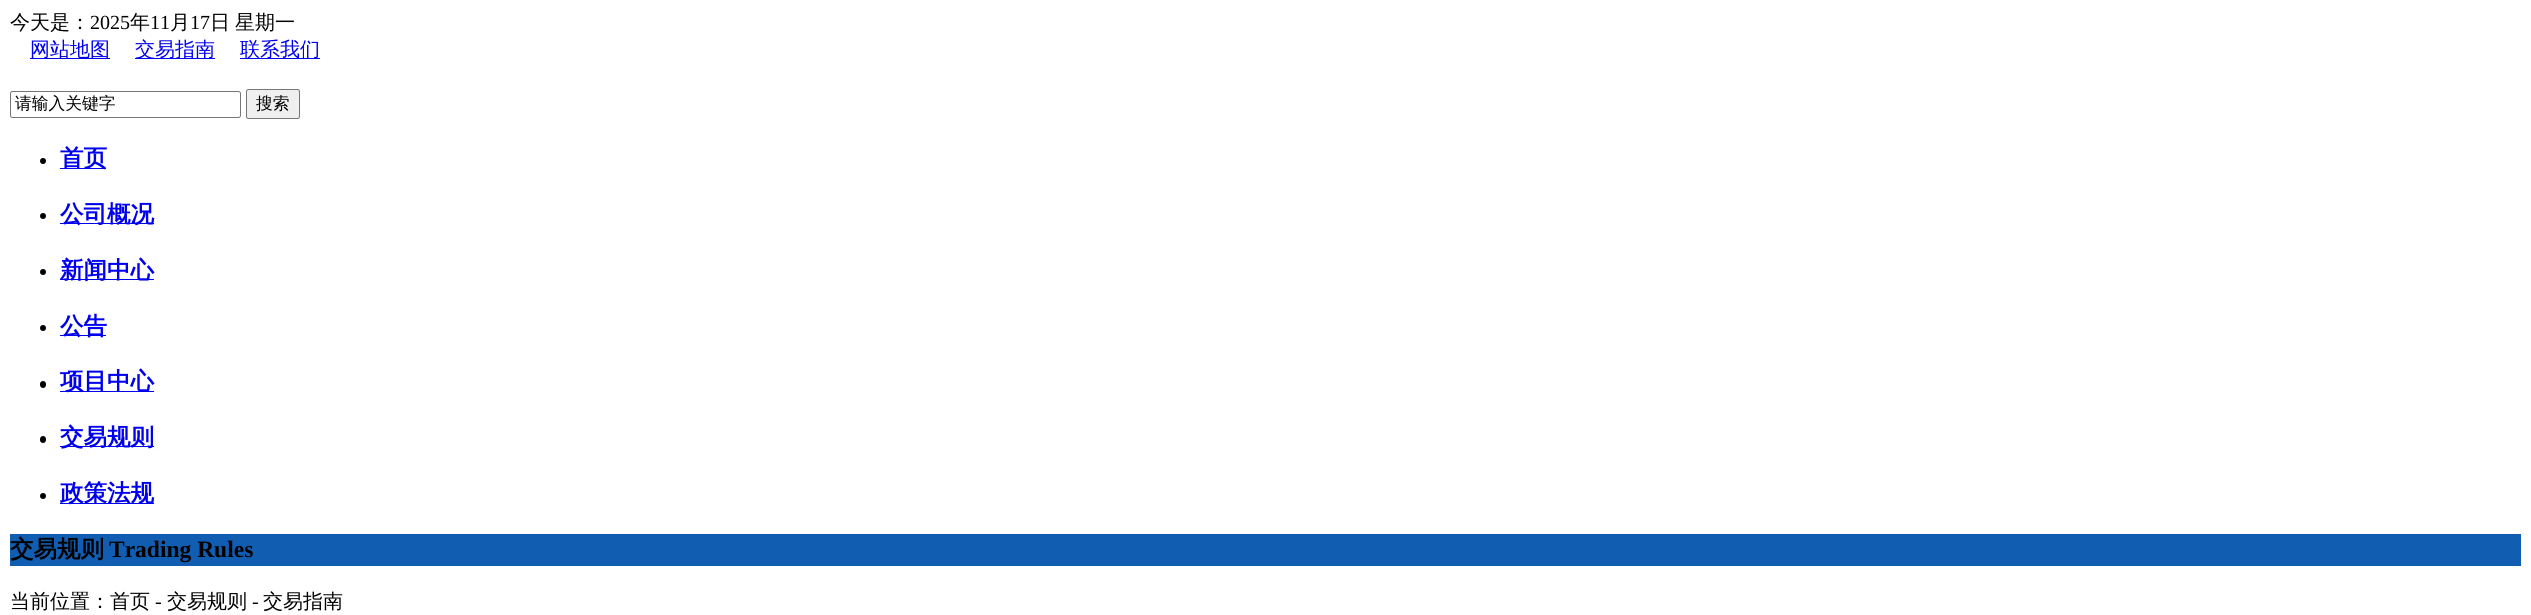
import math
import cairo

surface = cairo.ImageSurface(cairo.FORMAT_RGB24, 2531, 615)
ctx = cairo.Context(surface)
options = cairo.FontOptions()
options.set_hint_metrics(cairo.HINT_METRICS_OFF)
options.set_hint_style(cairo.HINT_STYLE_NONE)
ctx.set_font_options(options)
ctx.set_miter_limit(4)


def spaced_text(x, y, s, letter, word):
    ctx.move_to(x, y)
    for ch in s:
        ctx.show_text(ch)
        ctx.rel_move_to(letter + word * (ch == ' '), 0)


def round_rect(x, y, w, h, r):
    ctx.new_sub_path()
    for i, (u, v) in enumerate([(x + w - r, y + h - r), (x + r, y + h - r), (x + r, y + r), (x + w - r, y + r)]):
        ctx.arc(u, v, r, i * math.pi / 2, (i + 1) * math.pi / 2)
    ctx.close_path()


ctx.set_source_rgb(1, 1, 1)
ctx.paint()
ctx.select_font_face("WenQuanYi Zen Hei Medium")
ctx.set_font_size(20)
ctx.set_source_rgb(0, 0, 0)
ctx.move_to(10, 29)
ctx.show_text("今天是：")
ctx.select_font_face("Liberation Serif")
ctx.move_to(90, 29)
ctx.show_text("2025")
ctx.select_font_face("WenQuanYi Zen Hei Medium")
ctx.move_to(130, 29)
ctx.show_text("年")
ctx.select_font_face("Liberation Serif")
ctx.move_to(150, 29)
ctx.show_text("11")
ctx.select_font_face("WenQuanYi Zen Hei Medium")
ctx.move_to(170, 29)
ctx.show_text("月")
ctx.select_font_face("Liberation Serif")
ctx.move_to(190, 29)
ctx.show_text("17")
ctx.select_font_face("WenQuanYi Zen Hei Medium")
spaced_text(210, 29, "日 星期一", 0, -1)
ctx.set_source_rgb(0, 0, 0.933)
ctx.rectangle(30, 58, 80, 1)
ctx.fill()
ctx.move_to(30, 56)
ctx.show_text("网站地图")
ctx.rectangle(135, 58, 80, 1)
ctx.fill()
ctx.move_to(135, 56)
ctx.show_text("交易指南")
ctx.rectangle(240, 58, 80, 1)
ctx.fill()
ctx.move_to(240, 56)
ctx.show_text("联系我们")
round_rect(10.5, 91.5, 230, 26, 2)
ctx.set_source_rgb(0.463, 0.463, 0.463)
ctx.set_line_width(1)
ctx.stroke()
ctx.set_font_size(16.75)
ctx.set_source_rgb(0, 0, 0)
ctx.move_to(15, 109)
ctx.show_text("请输入关键字")
ctx.set_source_rgb(0.937, 0.937, 0.937)
round_rect(246.5, 89.5, 53, 29, 2)
ctx.fill_preserve()
ctx.set_source_rgb(0.463, 0.463, 0.463)
ctx.stroke()
ctx.set_source_rgb(0, 0, 0)
ctx.move_to(256, 109)
ctx.show_text("搜索")
ctx.new_path()
ctx.arc(43, 161, 3, 0, 2 * math.pi)
ctx.fill()
ctx.set_source_rgb(0, 0, 0.933)
ctx.rectangle(60, 168, 46, 1)
ctx.fill()
ctx.select_font_face("WenQuanYi Zen Hei", cairo.FONT_SLANT_NORMAL, cairo.FONT_WEIGHT_BOLD)
ctx.set_font_size(23.5)
ctx.move_to(60, 166)
ctx.show_text("首页")
ctx.set_source_rgb(0, 0, 0)
ctx.new_path()
ctx.arc(43, 216, 3, 0, 2 * math.pi)
ctx.fill()
ctx.set_source_rgb(0, 0, 0.933)
ctx.rectangle(60, 223, 94, 1)
ctx.fill()
ctx.move_to(60, 222)
ctx.show_text("公司概况")
ctx.set_source_rgb(0, 0, 0)
ctx.new_path()
ctx.arc(43, 272, 3, 0, 2 * math.pi)
ctx.fill()
ctx.set_source_rgb(0, 0, 0.933)
ctx.rectangle(60, 279, 94, 1)
ctx.fill()
ctx.move_to(60, 278)
ctx.show_text("新闻中心")
ctx.set_source_rgb(0, 0, 0)
ctx.new_path()
ctx.arc(43, 328, 3, 0, 2 * math.pi)
ctx.fill()
ctx.set_source_rgb(0, 0, 0.933)
ctx.rectangle(60, 335, 46, 1)
ctx.fill()
ctx.move_to(60, 334)
ctx.show_text("公告")
ctx.set_source_rgb(0, 0, 0)
round_rect(40, 381, 6, 7, 3)
ctx.fill()
ctx.set_source_rgb(0, 0, 0.933)
ctx.rectangle(60, 391, 94, 1)
ctx.fill()
ctx.move_to(60, 389)
ctx.show_text("项目中心")
ctx.set_source_rgb(0, 0, 0)
round_rect(40, 436, 6, 7, 3)
ctx.fill()
ctx.set_source_rgb(0, 0, 0.933)
ctx.rectangle(60, 446, 94, 1)
ctx.fill()
ctx.move_to(60, 445)
ctx.show_text("交易规则")
ctx.set_source_rgb(0, 0, 0)
ctx.new_path()
ctx.arc(43, 496, 3, 0, 2 * math.pi)
ctx.fill()
ctx.set_source_rgb(0, 0, 0.933)
ctx.rectangle(60, 503, 94, 1)
ctx.fill()
ctx.move_to(60, 501)
ctx.show_text("政策法规")
ctx.set_source_rgb(0.067, 0.365, 0.698)
ctx.rectangle(10, 534, 2511, 32)
ctx.fill()
ctx.set_source_rgb(0, 0, 0)
ctx.move_to(10, 557)
ctx.show_text("交易规则")
ctx.select_font_face("Liberation Serif", cairo.FONT_SLANT_NORMAL, cairo.FONT_WEIGHT_BOLD)
ctx.move_to(109, 557)
ctx.show_text("Trading Rules")
ctx.select_font_face("WenQuanYi Zen Hei Medium")
ctx.set_font_size(20)
ctx.move_to(10, 608)
ctx.show_text("当前位置：首页")
ctx.select_font_face("Liberation Serif")
ctx.move_to(155, 608)
ctx.show_text("-")
ctx.select_font_face("WenQuanYi Zen Hei Medium")
ctx.move_to(167, 608)
ctx.show_text("交易规则")
ctx.select_font_face("Liberation Serif")
ctx.move_to(252, 608)
ctx.show_text("-")
ctx.select_font_face("WenQuanYi Zen Hei Medium")
ctx.move_to(263, 608)
ctx.show_text("交易指南")
surface.write_to_png("page.png")
